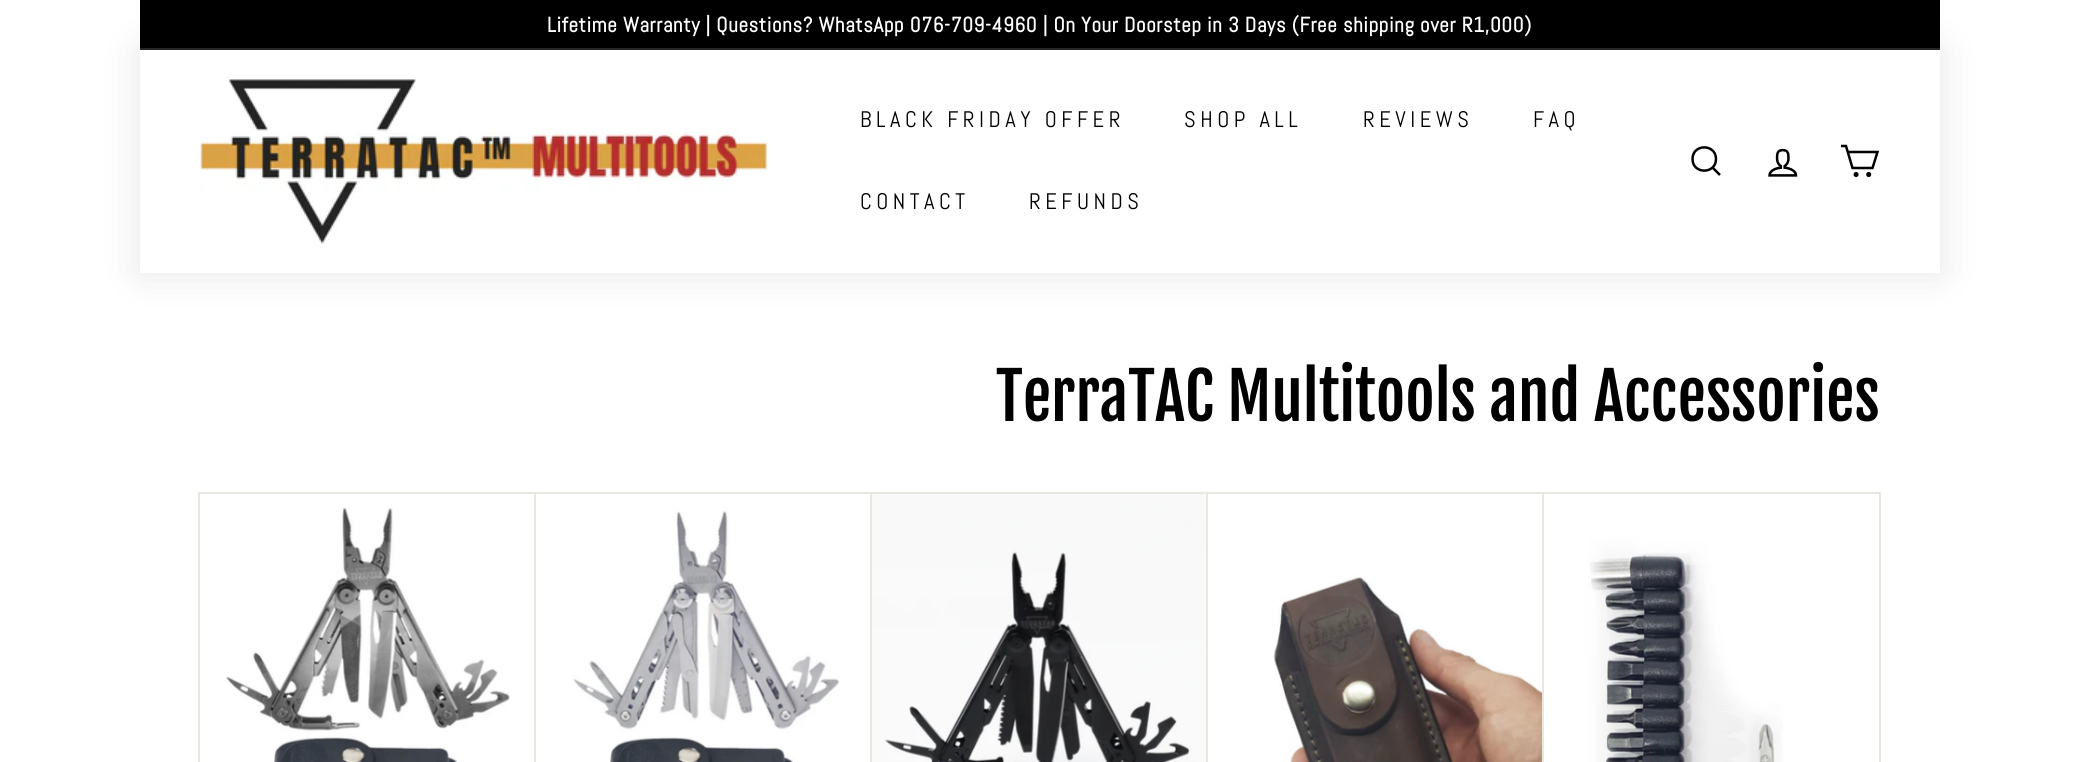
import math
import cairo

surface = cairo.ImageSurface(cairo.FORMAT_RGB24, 2078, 762)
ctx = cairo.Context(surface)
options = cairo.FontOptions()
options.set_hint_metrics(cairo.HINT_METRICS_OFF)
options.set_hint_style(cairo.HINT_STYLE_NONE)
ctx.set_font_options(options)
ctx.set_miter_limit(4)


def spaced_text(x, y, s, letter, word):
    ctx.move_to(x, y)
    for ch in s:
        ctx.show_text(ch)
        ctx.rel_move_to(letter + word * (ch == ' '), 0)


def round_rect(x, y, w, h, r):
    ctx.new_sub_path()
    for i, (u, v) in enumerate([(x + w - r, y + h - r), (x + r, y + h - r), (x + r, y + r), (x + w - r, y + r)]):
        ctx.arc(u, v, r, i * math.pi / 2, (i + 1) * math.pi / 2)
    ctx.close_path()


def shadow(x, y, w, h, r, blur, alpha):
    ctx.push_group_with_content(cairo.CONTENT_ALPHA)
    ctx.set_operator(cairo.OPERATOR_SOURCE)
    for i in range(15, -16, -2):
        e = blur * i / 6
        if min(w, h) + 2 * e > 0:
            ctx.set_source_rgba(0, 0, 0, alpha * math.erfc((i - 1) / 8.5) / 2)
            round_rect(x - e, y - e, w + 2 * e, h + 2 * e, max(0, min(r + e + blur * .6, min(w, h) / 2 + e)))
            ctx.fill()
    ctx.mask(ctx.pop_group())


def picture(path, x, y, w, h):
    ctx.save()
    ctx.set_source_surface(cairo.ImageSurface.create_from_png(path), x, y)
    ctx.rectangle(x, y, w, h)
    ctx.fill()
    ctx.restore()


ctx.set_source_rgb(1, 1, 1)
ctx.paint()
ctx.set_source_rgb(0, 0, 0)
shadow(140, 50, 1800, 223, 0, 19, 0.1)
ctx.set_source_rgb(0, 0, 0)
ctx.rectangle(140, 0, 1800, 48)
ctx.fill()
ctx.select_font_face("Abel", cairo.FONT_SLANT_NORMAL, cairo.FONT_WEIGHT_BOLD)
ctx.set_font_size(21)
ctx.set_source_rgb(1, 1, 1)
spaced_text(547, 32, "Lifetime Warranty | Questions? WhatsApp 076-709-4960 | On Your Doorstep in 3 Days (Free shipping over R1,000)", 0.64, 0)
ctx.set_source_rgb(0.149, 0.149, 0.149)
ctx.rectangle(140, 48, 1800, 2)
ctx.fill()
ctx.set_source_rgb(1, 1, 1)
ctx.rectangle(140, 50, 1800, 223)
ctx.fill()
picture("img1.png", 199, 79, 569, 165)
ctx.select_font_face("Abel")
ctx.set_font_size(22.5)
ctx.set_source_rgb(0, 0, 0)
spaced_text(860, 127, "BLACK FRIDAY OFFER", 4.5, 0)
spaced_text(1184, 127, "SHOP ALL", 4.5, 0)
spaced_text(1363, 127, "REVIEWS", 4.5, 0)
spaced_text(1533, 127, "FAQ", 4.5, 0)
spaced_text(860, 209, "CONTACT", 4.5, 0)
spaced_text(1029, 209, "REFUNDS", 4.5, 0)
ctx.new_path()
ctx.move_to(1716, 159)
ctx.curve_to(1716, 174.5, 1692.5, 174.5, 1692.5, 159)
ctx.curve_to(1692.5, 143.5, 1716, 143.5, 1716, 159)
ctx.close_path()
ctx.move_to(1720, 175)
ctx.line_to(1712.5, 167.5)
ctx.set_line_width(2.5)
ctx.stroke()
picture("img2.png", 1768, 148, 30, 29)
ctx.new_path()
ctx.move_to(1848, 152)
ctx.line_to(1877.5, 152)
ctx.line_to(1872.5, 168)
ctx.line_to(1852.5, 168)
ctx.line_to(1846, 146)
ctx.line_to(1841, 146)
ctx.stroke()
ctx.arc(1856.1, 174.5, 1.3, 0, 2 * math.pi)
ctx.stroke()
ctx.arc(1868.7, 174.5, 1.3, 0, 2 * math.pi)
ctx.stroke()
ctx.select_font_face("Fjalla One")
ctx.set_font_size(63.75)
ctx.move_to(996, 421)
ctx.show_text("TerraTAC Multitools and Accessories")
picture("img3.png", 226, 507, 284, 255)
ctx.rectangle(199, 493, 337, 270)
ctx.set_source_rgb(0.91, 0.91, 0.882)
ctx.set_line_width(2)
ctx.stroke()
picture("img4.png", 536, 494, 303, 268)
ctx.rectangle(535, 493, 337, 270)
ctx.stroke()
picture("img5.png", 872, 494, 334, 268)
ctx.rectangle(871, 493, 337, 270)
ctx.stroke()
picture("img6.png", 1208, 494, 334, 268)
ctx.rectangle(1207, 493, 337, 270)
ctx.stroke()
picture("img7.png", 1544, 494, 239, 268)
ctx.rectangle(1543, 493, 337, 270)
ctx.stroke()
surface.write_to_png("page.png")
